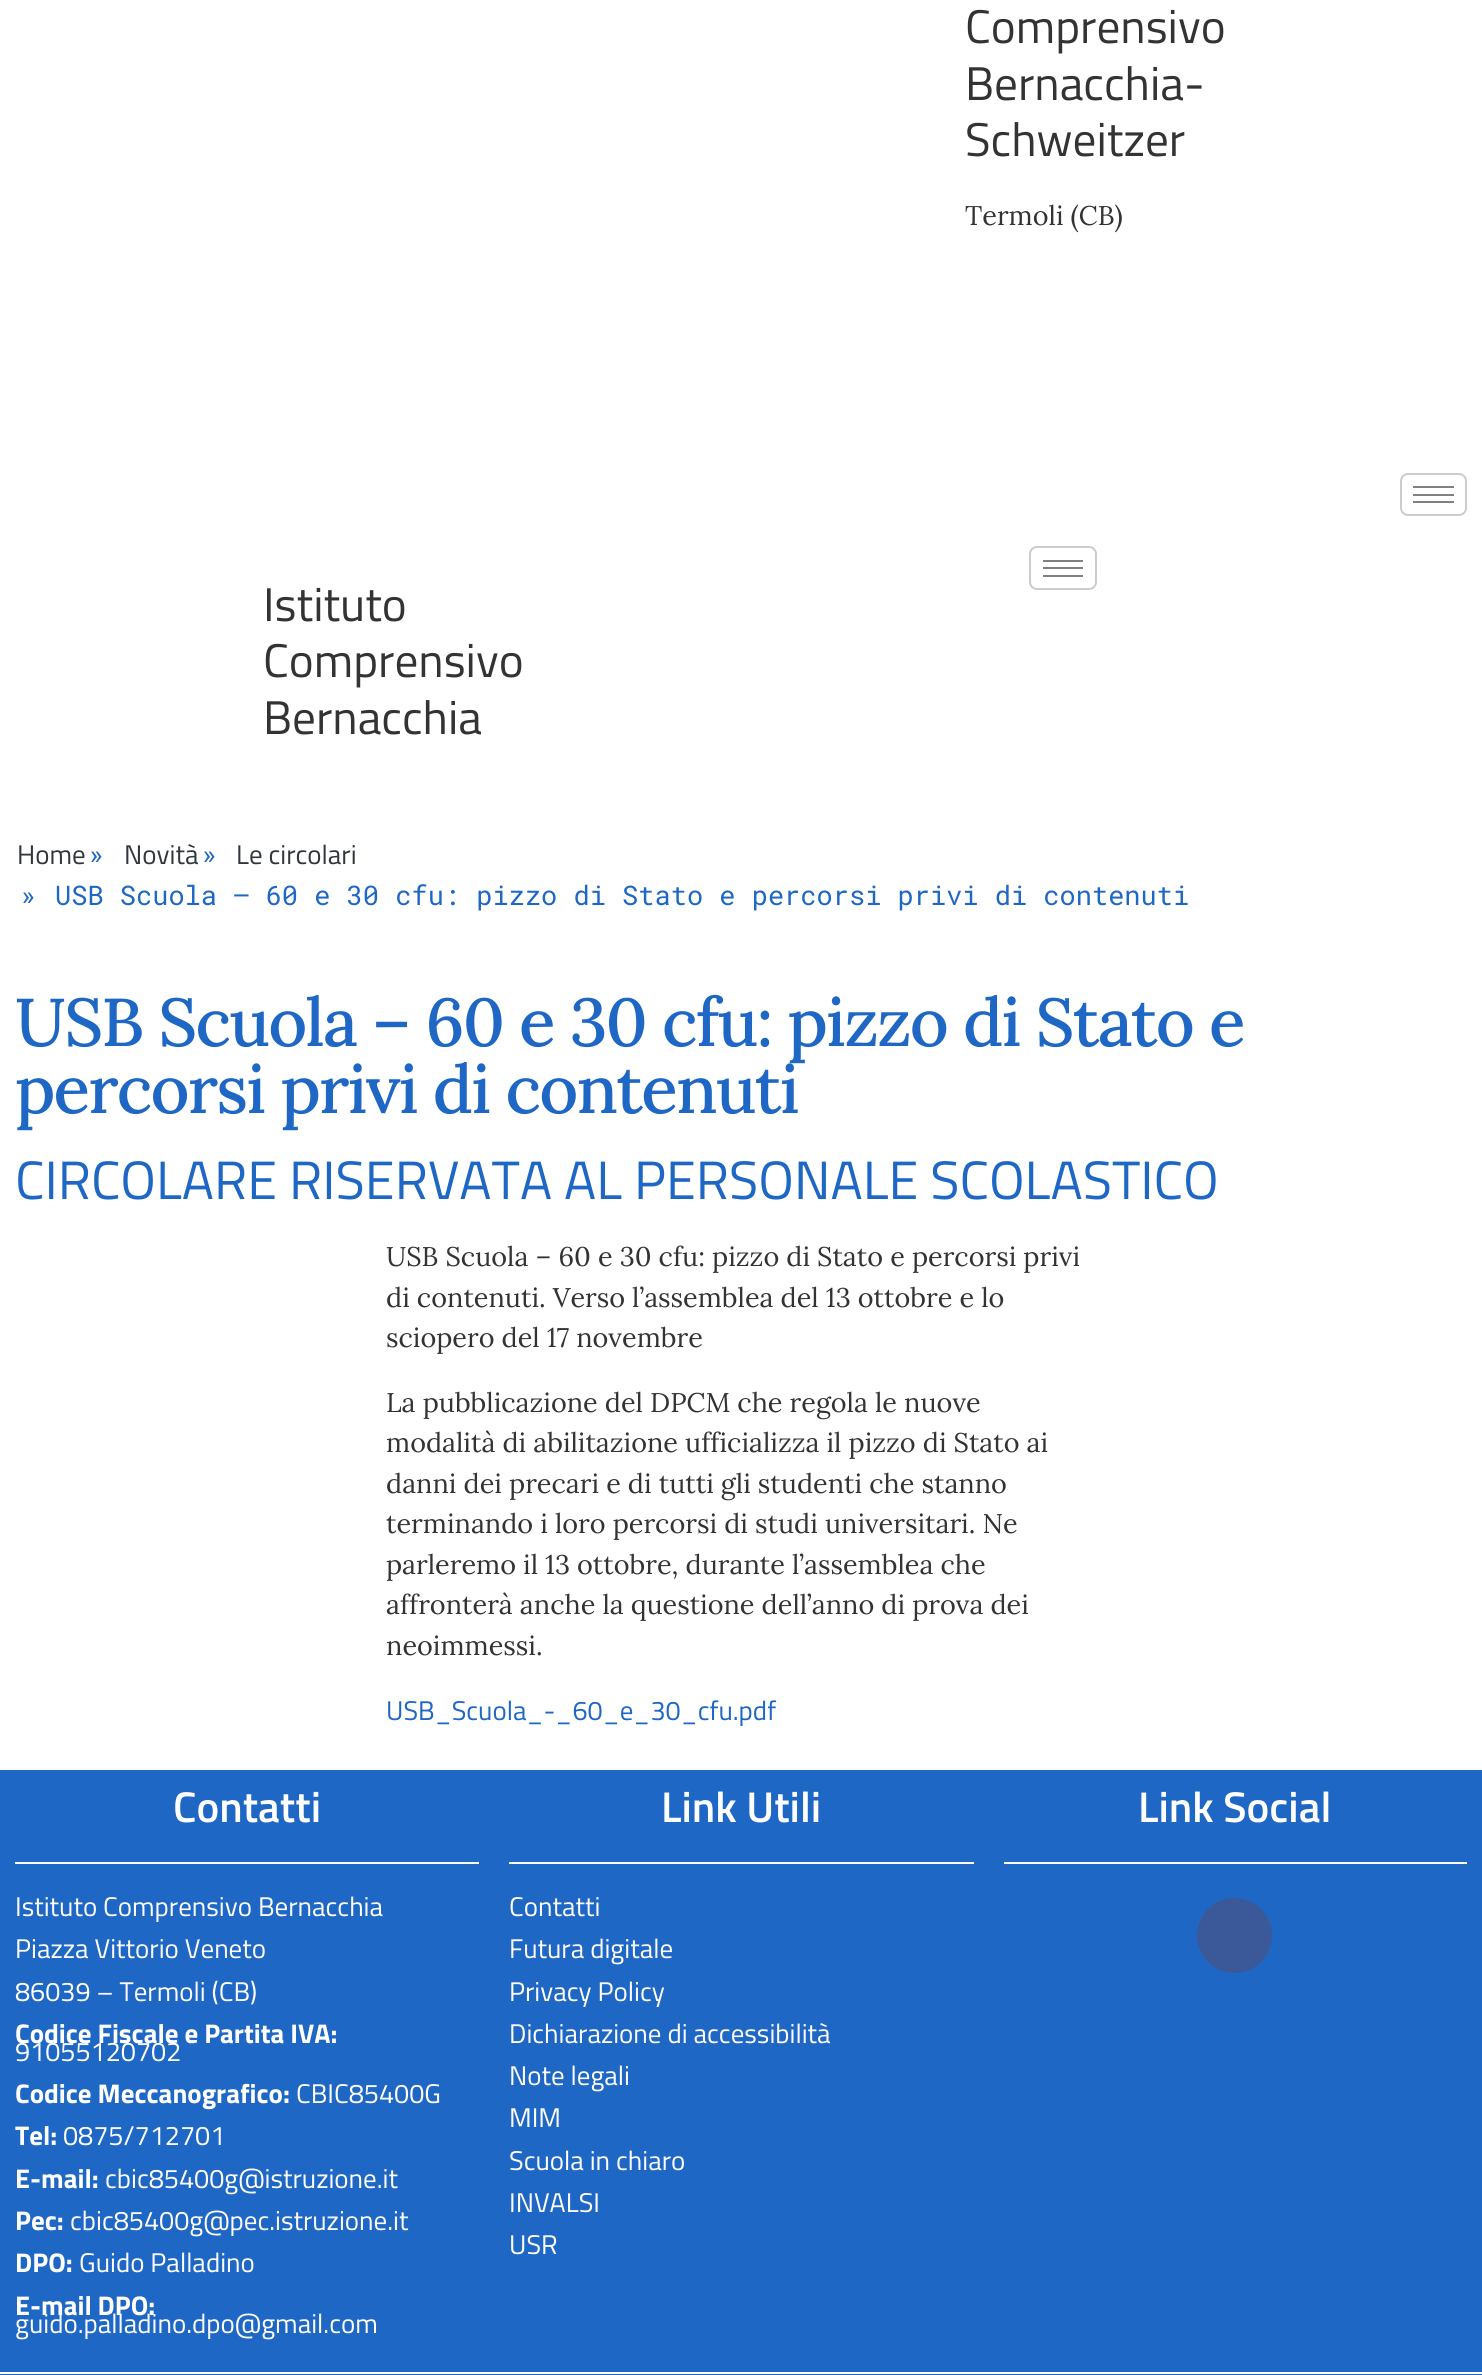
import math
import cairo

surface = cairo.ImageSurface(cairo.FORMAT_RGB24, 1482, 2375)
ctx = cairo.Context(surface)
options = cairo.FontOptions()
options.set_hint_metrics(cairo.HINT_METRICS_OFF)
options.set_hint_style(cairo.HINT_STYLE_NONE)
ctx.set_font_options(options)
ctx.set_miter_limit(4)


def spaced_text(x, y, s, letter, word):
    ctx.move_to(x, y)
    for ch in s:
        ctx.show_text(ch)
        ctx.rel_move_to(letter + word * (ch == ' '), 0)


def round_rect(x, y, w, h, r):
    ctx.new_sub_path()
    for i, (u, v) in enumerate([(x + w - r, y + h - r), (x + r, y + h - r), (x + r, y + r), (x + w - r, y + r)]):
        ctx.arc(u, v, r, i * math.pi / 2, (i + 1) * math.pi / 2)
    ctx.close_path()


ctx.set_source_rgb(1, 1, 1)
ctx.paint()
ctx.select_font_face("Titillium Web")
ctx.set_font_size(47.25)
ctx.set_source_rgb(0.2, 0.2, 0.2)
ctx.move_to(965, 43)
ctx.show_text("Comprensivo")
ctx.move_to(965, 100)
ctx.show_text("Bernacchia-")
ctx.move_to(965, 156)
ctx.show_text("Schweitzer")
ctx.select_font_face("Lora")
ctx.set_font_size(27)
ctx.move_to(965, 225)
ctx.show_text("Termoli (CB)")
round_rect(1401, 474, 65, 41, 7)
ctx.set_source_rgb(0.8, 0.8, 0.8)
ctx.stroke()
ctx.set_source_rgb(0.502, 0.502, 0.502)
ctx.rectangle(1413, 486, 41, 2)
ctx.fill()
ctx.rectangle(1413, 494, 41, 2)
ctx.fill()
ctx.rectangle(1413, 501, 41, 2)
ctx.fill()
round_rect(1030, 547, 66, 42, 7)
ctx.set_source_rgb(0.8, 0.8, 0.8)
ctx.stroke()
ctx.set_source_rgb(0.502, 0.502, 0.502)
ctx.rectangle(1043, 560, 40, 2)
ctx.fill()
ctx.rectangle(1043, 567, 40, 2)
ctx.fill()
ctx.rectangle(1043, 575, 40, 2)
ctx.fill()
ctx.select_font_face("Titillium Web")
ctx.set_font_size(47.25)
ctx.set_source_rgb(0.2, 0.2, 0.2)
ctx.move_to(263, 621)
ctx.show_text("Istituto")
ctx.move_to(263, 677)
ctx.show_text("Comprensivo")
ctx.move_to(263, 734)
ctx.show_text("Bernacchia")
ctx.set_font_size(27)
ctx.set_source_rgb(0.188, 0.216, 0.239)
ctx.move_to(17, 864)
ctx.show_text("Home")
ctx.select_font_face("Roboto Mono")
ctx.set_source_rgb(0.118, 0.404, 0.773)
ctx.move_to(88, 864)
ctx.show_text("»")
ctx.select_font_face("Titillium Web")
ctx.set_source_rgb(0.188, 0.216, 0.239)
ctx.move_to(124, 864)
ctx.show_text("Novità")
ctx.select_font_face("Roboto Mono")
ctx.set_source_rgb(0.118, 0.404, 0.773)
ctx.move_to(201, 864)
ctx.show_text("»")
ctx.select_font_face("Titillium Web")
ctx.set_source_rgb(0.188, 0.216, 0.239)
ctx.move_to(236, 864)
ctx.show_text("Le circolari")
ctx.select_font_face("Roboto Mono")
ctx.set_source_rgb(0.118, 0.404, 0.773)
ctx.move_to(20, 905)
ctx.show_text("»")
ctx.move_to(55, 905)
ctx.show_text("USB Scuola – 60 e 30 cfu: pizzo di Stato e percorsi privi di contenuti")
ctx.select_font_face("Lora Medium")
ctx.set_font_size(67.5)
spaced_text(15, 1046, "USB Scuola – 60 e 30 cfu: pizzo di Stato e", -1.8, 0)
spaced_text(15, 1113, "percorsi privi di contenuti", -1.8, 0)
ctx.select_font_face("Titillium Web")
ctx.set_font_size(54)
ctx.move_to(15, 1199)
ctx.show_text("CIRCOLARE RISERVATA AL PERSONALE SCOLASTICO")
ctx.select_font_face("Lora")
ctx.set_font_size(27)
ctx.set_source_rgb(0.2, 0.2, 0.2)
ctx.move_to(386, 1266)
ctx.show_text("USB Scuola – 60 e 30 cfu: pizzo di Stato e percorsi privi")
ctx.move_to(386, 1307)
ctx.show_text("di contenuti. Verso l’assemblea del 13 ottobre e lo")
ctx.move_to(386, 1347)
ctx.show_text("sciopero del 17 novembre")
ctx.move_to(386, 1412)
ctx.show_text("La pubblicazione del DPCM che regola le nuove")
ctx.move_to(386, 1452)
ctx.show_text("modalità di abilitazione ufficializza il pizzo di Stato ai")
ctx.move_to(386, 1493)
ctx.show_text("danni dei precari e di tutti gli studenti che stanno")
ctx.move_to(386, 1533)
ctx.show_text("terminando i loro percorsi di studi universitari. Ne")
ctx.move_to(386, 1574)
ctx.show_text("parleremo il 13 ottobre, durante l’assemblea che")
ctx.move_to(386, 1614)
ctx.show_text("affronterà anche la questione dell’anno di prova dei")
ctx.move_to(386, 1655)
ctx.show_text("neoimmessi.")
ctx.select_font_face("Titillium Web")
ctx.set_source_rgb(0.118, 0.404, 0.773)
ctx.move_to(386, 1720)
ctx.show_text("USB_Scuola_-_60_e_30_cfu.pdf")
ctx.rectangle(0, 1770, 1482, 602)
ctx.fill()
ctx.select_font_face("Titillium Web SemiBold")
ctx.set_font_size(43)
ctx.set_source_rgb(1, 1, 1)
ctx.move_to(173, 1822)
ctx.show_text("Contatti")
ctx.rectangle(15, 1862, 464, 2)
ctx.fill()
ctx.select_font_face("Titillium Web")
ctx.set_font_size(27)
ctx.move_to(15, 1916)
ctx.show_text("Istituto Comprensivo Bernacchia")
ctx.move_to(15, 1958)
ctx.show_text("Piazza Vittorio Veneto")
ctx.move_to(15, 2001)
ctx.show_text("86039 – Termoli (CB)")
ctx.select_font_face("Titillium Web", cairo.FONT_SLANT_NORMAL, cairo.FONT_WEIGHT_BOLD)
ctx.move_to(15, 2043)
ctx.show_text("Codice Fiscale e Partita IVA:")
ctx.select_font_face("Titillium Web")
ctx.move_to(15, 2061)
ctx.show_text("91055120702")
ctx.select_font_face("Titillium Web", cairo.FONT_SLANT_NORMAL, cairo.FONT_WEIGHT_BOLD)
ctx.move_to(15, 2103)
ctx.show_text("Codice Meccanografico:")
ctx.select_font_face("Titillium Web")
ctx.move_to(296, 2103)
ctx.show_text("CBIC85400G")
ctx.select_font_face("Titillium Web", cairo.FONT_SLANT_NORMAL, cairo.FONT_WEIGHT_BOLD)
ctx.move_to(15, 2145)
ctx.show_text("Tel:")
ctx.select_font_face("Titillium Web")
ctx.move_to(63, 2145)
ctx.show_text("0875/712701")
ctx.select_font_face("Titillium Web", cairo.FONT_SLANT_NORMAL, cairo.FONT_WEIGHT_BOLD)
ctx.move_to(15, 2188)
ctx.show_text("E-mail:")
ctx.select_font_face("Titillium Web")
ctx.move_to(105, 2188)
ctx.show_text("cbic85400g@istruzione.it")
ctx.select_font_face("Titillium Web", cairo.FONT_SLANT_NORMAL, cairo.FONT_WEIGHT_BOLD)
ctx.move_to(15, 2230)
ctx.show_text("Pec:")
ctx.select_font_face("Titillium Web")
ctx.move_to(70, 2230)
ctx.show_text("cbic85400g@pec.istruzione.it")
ctx.select_font_face("Titillium Web", cairo.FONT_SLANT_NORMAL, cairo.FONT_WEIGHT_BOLD)
ctx.move_to(15, 2272)
ctx.show_text("DPO:")
ctx.select_font_face("Titillium Web")
ctx.move_to(79, 2272)
ctx.show_text("Guido Palladino")
ctx.select_font_face("Titillium Web", cairo.FONT_SLANT_NORMAL, cairo.FONT_WEIGHT_BOLD)
ctx.move_to(15, 2315)
ctx.show_text("E-mail DPO:")
ctx.select_font_face("Titillium Web")
ctx.move_to(15, 2333)
ctx.show_text("guido.palladino.dpo@gmail.com")
ctx.select_font_face("Titillium Web SemiBold")
ctx.set_font_size(43)
ctx.move_to(661, 1822)
ctx.show_text("Link Utili")
ctx.rectangle(509, 1862, 465, 2)
ctx.fill()
ctx.select_font_face("Titillium Web")
ctx.set_font_size(27)
ctx.move_to(509, 1916)
ctx.show_text("Contatti")
ctx.move_to(509, 1958)
ctx.show_text("Futura digitale")
ctx.move_to(509, 2001)
ctx.show_text("Privacy Policy")
ctx.move_to(509, 2043)
ctx.show_text("Dichiarazione di accessibilità")
ctx.move_to(509, 2085)
ctx.show_text("Note legali")
ctx.move_to(509, 2127)
ctx.show_text("MIM")
ctx.move_to(509, 2170)
ctx.show_text("Scuola in chiaro")
ctx.move_to(509, 2212)
ctx.show_text("INVALSI")
ctx.move_to(509, 2254)
ctx.show_text("USR")
ctx.select_font_face("Titillium Web SemiBold")
ctx.set_font_size(43)
ctx.move_to(1138, 1822)
ctx.show_text("Link Social")
ctx.rectangle(1004, 1862, 463, 2)
ctx.fill()
ctx.set_source_rgb(0.231, 0.349, 0.596)
ctx.arc(1234.5, 1935.5, 37.5, 0, 2 * math.pi)
ctx.fill()
ctx.set_source_rgb(0.118, 0.404, 0.773)
ctx.rectangle(0, 2374, 1482, 1)
ctx.fill()
surface.write_to_png("page.png")
